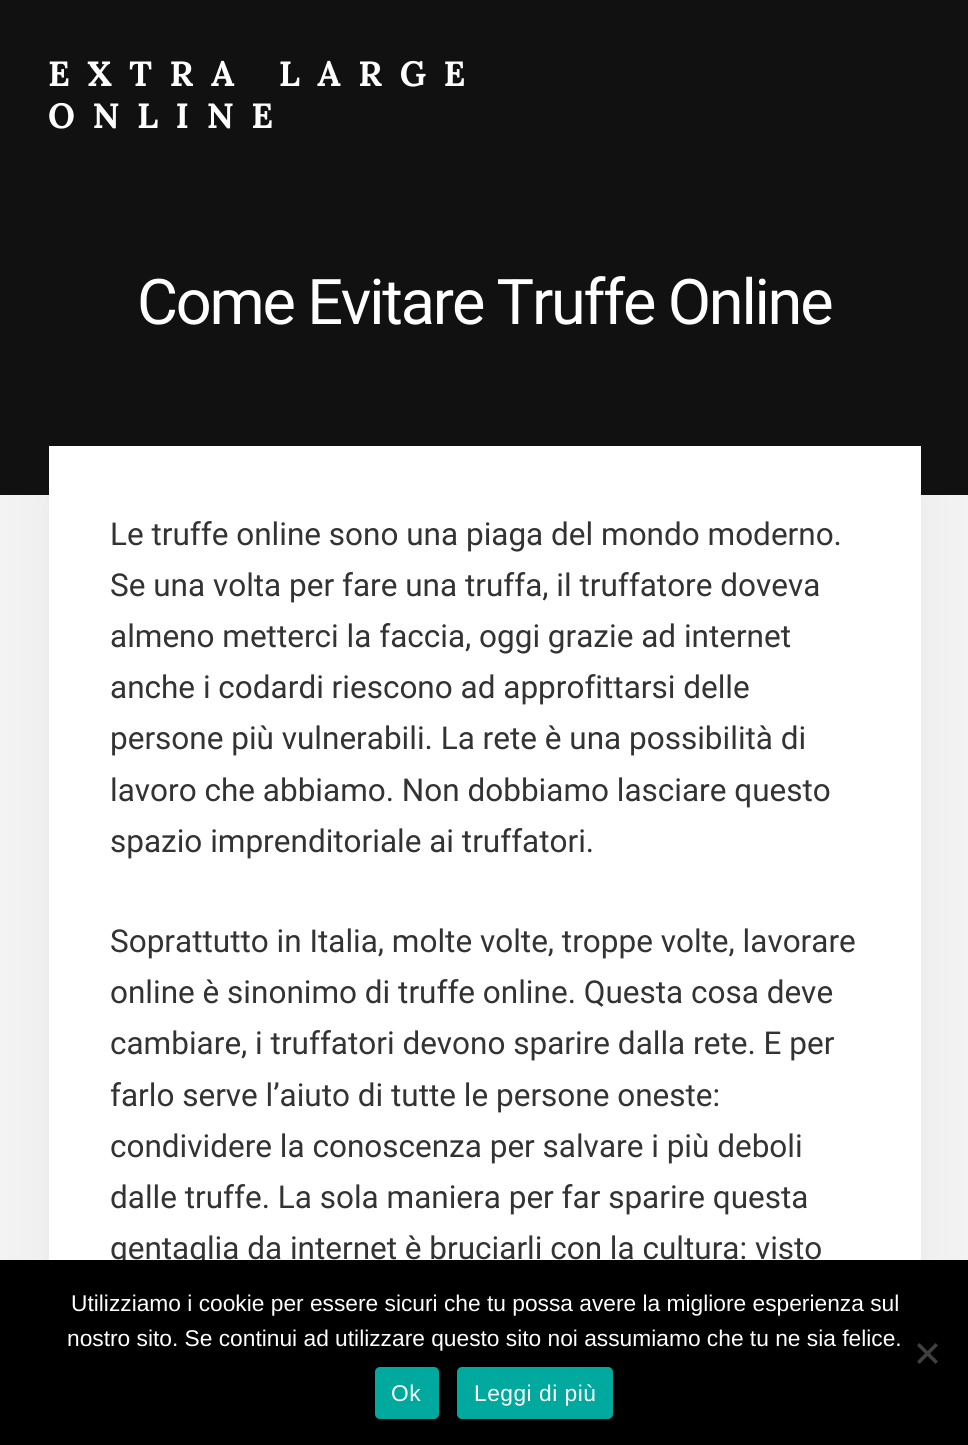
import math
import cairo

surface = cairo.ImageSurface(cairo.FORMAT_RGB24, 968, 1445)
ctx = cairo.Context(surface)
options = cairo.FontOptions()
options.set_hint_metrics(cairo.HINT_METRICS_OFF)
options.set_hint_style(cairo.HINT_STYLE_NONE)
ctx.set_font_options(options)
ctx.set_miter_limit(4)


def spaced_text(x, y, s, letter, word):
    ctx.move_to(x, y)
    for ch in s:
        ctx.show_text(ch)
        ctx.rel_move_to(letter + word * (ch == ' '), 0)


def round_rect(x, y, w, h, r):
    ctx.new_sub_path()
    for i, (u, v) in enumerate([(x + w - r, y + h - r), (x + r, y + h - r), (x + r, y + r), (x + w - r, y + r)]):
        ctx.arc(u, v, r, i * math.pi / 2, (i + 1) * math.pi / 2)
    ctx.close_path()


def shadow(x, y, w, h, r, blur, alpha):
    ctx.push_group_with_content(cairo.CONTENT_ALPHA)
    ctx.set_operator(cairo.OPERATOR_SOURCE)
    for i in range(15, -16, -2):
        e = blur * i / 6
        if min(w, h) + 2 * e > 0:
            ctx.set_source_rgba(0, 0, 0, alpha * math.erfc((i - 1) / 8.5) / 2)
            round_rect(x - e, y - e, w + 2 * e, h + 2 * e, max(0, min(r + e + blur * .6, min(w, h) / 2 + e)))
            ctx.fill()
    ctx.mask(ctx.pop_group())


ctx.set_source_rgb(0.957, 0.957, 0.957)
ctx.paint()
ctx.set_source_rgb(0.067, 0.067, 0.067)
ctx.rectangle(0, 0, 968, 495)
ctx.fill()
ctx.select_font_face("Lora", cairo.FONT_SLANT_NORMAL, cairo.FONT_WEIGHT_BOLD)
ctx.set_font_size(35)
ctx.set_source_rgb(1, 1, 1)
spaced_text(48, 86, "EXTRA LARGE", 17.5, 0)
spaced_text(48, 128, "ONLINE", 17.5, 0)
ctx.select_font_face("Roboto")
ctx.set_font_size(63)
spaced_text(137, 324, "Come Evitare Truffe Online", -2.2, 0)
ctx.set_source_rgb(0, 0, 0)
shadow(49, 490, 872, 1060, 0, 35, 0.05)
ctx.set_source_rgb(1, 1, 1)
ctx.rectangle(49, 446, 872, 814)
ctx.fill()
ctx.set_font_size(31.5)
ctx.set_source_rgb(0.2, 0.2, 0.2)
ctx.move_to(110, 545)
ctx.show_text("Le truffe online sono una piaga del mondo moderno.")
ctx.move_to(110, 596)
ctx.show_text("Se una volta per fare una truffa, il truffatore doveva")
ctx.move_to(110, 647)
ctx.show_text("almeno metterci la faccia, oggi grazie ad internet")
ctx.move_to(110, 698)
ctx.show_text("anche i codardi riescono ad approfittarsi delle")
ctx.move_to(110, 749)
ctx.show_text("persone più vulnerabili. La rete è una possibilità di")
ctx.move_to(110, 801)
ctx.show_text("lavoro che abbiamo. Non dobbiamo lasciare questo")
ctx.move_to(110, 852)
ctx.show_text("spazio imprenditoriale ai truffatori.")
ctx.move_to(110, 952)
ctx.show_text("Soprattutto in Italia, molte volte, troppe volte, lavorare")
ctx.move_to(110, 1003)
ctx.show_text("online è sinonimo di truffe online. Questa cosa deve")
ctx.move_to(110, 1054)
ctx.show_text("cambiare, i truffatori devono sparire dalla rete. E per")
ctx.move_to(110, 1106)
ctx.show_text("farlo serve l’aiuto di tutte le persone oneste:")
ctx.move_to(110, 1157)
ctx.show_text("condividere la conoscenza per salvare i più deboli")
ctx.move_to(110, 1208)
ctx.show_text("dalle truffe. La sola maniera per far sparire questa")
ctx.move_to(110, 1259)
ctx.show_text("gentaglia da internet è bruciarli con la cultura: visto")
ctx.set_source_rgb(0, 0, 0)
ctx.rectangle(0, 1260, 968, 185)
ctx.fill()
ctx.select_font_face("Liberation Sans")
ctx.set_font_size(22.75)
ctx.set_source_rgb(1, 1, 1)
ctx.move_to(71, 1311)
ctx.show_text("Utilizziamo i cookie per essere sicuri che tu possa avere la migliore esperienza sul")
ctx.move_to(67, 1346)
ctx.show_text("nostro sito. Se continui ad utilizzare questo sito noi assumiamo che tu ne sia felice.")
ctx.set_source_rgb(0.251, 0.251, 0.251)
ctx.new_path()
ctx.move_to(935.5, 1343)
ctx.line_to(938, 1345.5)
ctx.line_to(919.5, 1364)
ctx.line_to(917, 1361.5)
ctx.close_path()
ctx.fill()
ctx.new_path()
ctx.move_to(917, 1345.5)
ctx.line_to(919.5, 1343)
ctx.line_to(938, 1361.5)
ctx.line_to(935.5, 1364)
ctx.close_path()
ctx.fill()
ctx.set_source_rgb(0, 0.663, 0.616)
round_rect(375, 1367, 64, 52, 5)
ctx.fill()
ctx.set_source_rgb(1, 1, 1)
spaced_text(391, 1401, "Ok", 0.5, 0)
ctx.set_source_rgb(0, 0.663, 0.616)
round_rect(457, 1367, 156, 52, 5)
ctx.fill()
ctx.set_source_rgb(1, 1, 1)
spaced_text(474, 1401, "Leggi di più", 0.5, 0)
surface.write_to_png("page.png")
